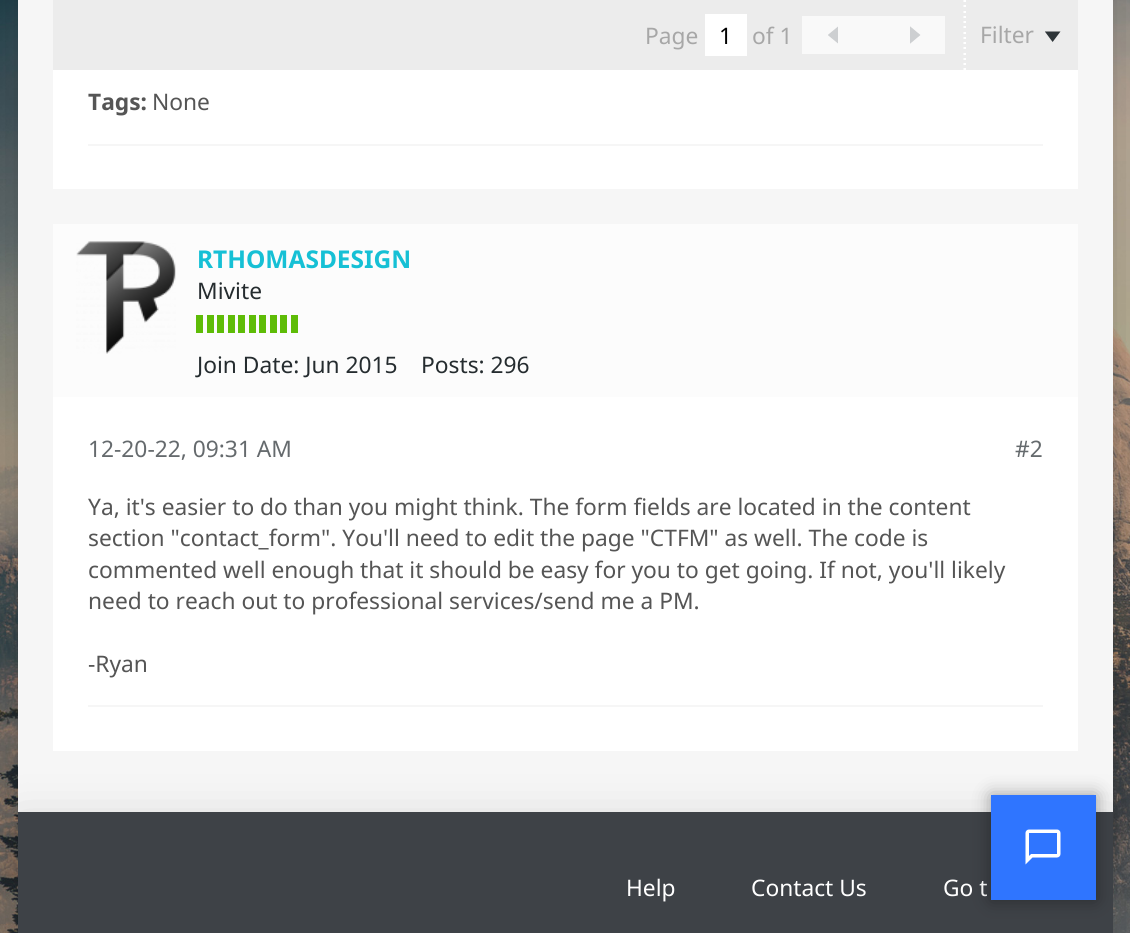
import math
import cairo

surface = cairo.ImageSurface(cairo.FORMAT_RGB24, 1130, 933)
ctx = cairo.Context(surface)
options = cairo.FontOptions()
options.set_hint_metrics(cairo.HINT_METRICS_OFF)
options.set_hint_style(cairo.HINT_STYLE_NONE)
ctx.set_font_options(options)
ctx.set_miter_limit(4)


def round_rect(x, y, w, h, r):
    ctx.new_sub_path()
    for i, (u, v) in enumerate([(x + w - r, y + h - r), (x + r, y + h - r), (x + r, y + r), (x + w - r, y + r)]):
        ctx.arc(u, v, r, i * math.pi / 2, (i + 1) * math.pi / 2)
    ctx.close_path()


def shadow(x, y, w, h, r, blur, alpha):
    ctx.push_group_with_content(cairo.CONTENT_ALPHA)
    ctx.set_operator(cairo.OPERATOR_SOURCE)
    for i in range(15, -16, -2):
        e = blur * i / 6
        if min(w, h) + 2 * e > 0:
            ctx.set_source_rgba(0, 0, 0, alpha * math.erfc((i - 1) / 8.5) / 2)
            round_rect(x - e, y - e, w + 2 * e, h + 2 * e, max(0, min(r + e + blur * .6, min(w, h) / 2 + e)))
            ctx.fill()
    ctx.mask(ctx.pop_group())


def picture(path, x, y, w, h):
    ctx.save()
    ctx.set_source_surface(cairo.ImageSurface.create_from_png(path), x, y)
    ctx.rectangle(x, y, w, h)
    ctx.fill()
    ctx.restore()


ctx.set_source_rgb(1, 1, 1)
ctx.paint()
picture("img1.png", 0, 0, 1130, 933)
ctx.set_source_rgb(0, 0, 0)
shadow(18, -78, 1095, 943, 0, 26, 0.2)
ctx.set_source_rgb(0.961, 0.961, 0.961)
ctx.rectangle(18, 0, 1095, 812)
ctx.fill()
ctx.set_source_rgb(0.922, 0.922, 0.922)
ctx.rectangle(53, 0, 1025, 70)
ctx.fill()
ctx.select_font_face("Noto Sans")
ctx.set_font_size(22.75)
ctx.set_source_rgb(0.655, 0.655, 0.655)
ctx.move_to(645, 44)
ctx.show_text("Page")
ctx.set_source_rgb(1, 1, 1)
ctx.rectangle(705, 14, 42, 42)
ctx.fill()
ctx.set_source_rgb(0, 0, 0)
ctx.move_to(719, 44)
ctx.show_text("1")
ctx.set_source_rgb(0.655, 0.655, 0.655)
ctx.move_to(752, 44)
ctx.show_text("of 1")
ctx.set_source_rgb(0.973, 0.973, 0.973)
ctx.rectangle(802, 16, 143, 38)
ctx.fill()
picture("img2.png", 828, 26, 10, 18)
picture("img3.png", 910, 26, 11, 18)
ctx.set_source_rgb(0.961, 0.961, 0.961)
ctx.rectangle(963, 0, 2, 2)
ctx.fill()
ctx.rectangle(963, 5, 2, 2)
ctx.fill()
ctx.rectangle(963, 11, 2, 2)
ctx.fill()
ctx.rectangle(963, 16, 2, 2)
ctx.fill()
ctx.rectangle(963, 21, 2, 2)
ctx.fill()
ctx.rectangle(963, 26, 2, 2)
ctx.fill()
ctx.rectangle(963, 32, 2, 2)
ctx.fill()
ctx.rectangle(963, 37, 2, 2)
ctx.fill()
ctx.rectangle(963, 42, 2, 2)
ctx.fill()
ctx.rectangle(963, 47, 2, 2)
ctx.fill()
ctx.rectangle(963, 53, 2, 2)
ctx.fill()
ctx.rectangle(963, 58, 2, 2)
ctx.fill()
ctx.rectangle(963, 63, 2, 2)
ctx.fill()
ctx.rectangle(963, 68, 2, 2)
ctx.fill()
ctx.set_source_rgb(1, 1, 1)
ctx.rectangle(964, 0, 2, 2)
ctx.fill()
ctx.rectangle(964, 5, 2, 2)
ctx.fill()
ctx.rectangle(964, 11, 2, 2)
ctx.fill()
ctx.rectangle(964, 16, 2, 2)
ctx.fill()
ctx.rectangle(964, 21, 2, 2)
ctx.fill()
ctx.rectangle(964, 26, 2, 2)
ctx.fill()
ctx.rectangle(964, 32, 2, 2)
ctx.fill()
ctx.rectangle(964, 37, 2, 2)
ctx.fill()
ctx.rectangle(964, 42, 2, 2)
ctx.fill()
ctx.rectangle(964, 47, 2, 2)
ctx.fill()
ctx.rectangle(964, 53, 2, 2)
ctx.fill()
ctx.rectangle(964, 58, 2, 2)
ctx.fill()
ctx.rectangle(964, 63, 2, 2)
ctx.fill()
ctx.rectangle(964, 68, 2, 2)
ctx.fill()
ctx.set_source_rgb(0.655, 0.655, 0.655)
ctx.move_to(980, 43)
ctx.show_text("Filter")
picture("img4.png", 1045, 31, 16, 11)
ctx.set_source_rgb(1, 1, 1)
ctx.rectangle(53, 70, 1025, 119)
ctx.fill()
ctx.select_font_face("Noto Sans", cairo.FONT_SLANT_NORMAL, cairo.FONT_WEIGHT_BOLD)
ctx.set_source_rgb(0.333, 0.333, 0.333)
ctx.move_to(88, 110)
ctx.show_text("Tags:")
ctx.select_font_face("Noto Sans")
ctx.move_to(152, 110)
ctx.show_text("None")
ctx.set_source_rgb(0.961, 0.961, 0.961)
ctx.rectangle(88, 144, 955, 2)
ctx.fill()
ctx.set_source_rgb(0.988, 0.988, 0.988)
ctx.rectangle(53, 224, 1025, 173)
ctx.fill()
picture("img5.png", 76, 241, 100, 113)
ctx.select_font_face("Noto Sans", cairo.FONT_SLANT_NORMAL, cairo.FONT_WEIGHT_BOLD)
ctx.set_font_size(24.5)
ctx.set_source_rgb(0.086, 0.753, 0.835)
ctx.move_to(197, 268)
ctx.show_text("RTHOMASDESIGN")
ctx.select_font_face("Noto Sans")
ctx.set_font_size(22.75)
ctx.set_source_rgb(0.145, 0.173, 0.184)
ctx.move_to(197, 299)
ctx.show_text("Mivite")
ctx.set_source_rgb(0.369, 0.737, 0.031)
ctx.rectangle(196, 315, 7, 18)
ctx.fill()
ctx.rectangle(207, 315, 7, 18)
ctx.fill()
ctx.rectangle(217, 315, 7, 18)
ctx.fill()
ctx.rectangle(228, 315, 7, 18)
ctx.fill()
ctx.rectangle(238, 315, 7, 18)
ctx.fill()
ctx.rectangle(249, 315, 7, 18)
ctx.fill()
ctx.rectangle(259, 315, 7, 18)
ctx.fill()
ctx.rectangle(270, 315, 7, 18)
ctx.fill()
ctx.rectangle(280, 315, 7, 18)
ctx.fill()
ctx.rectangle(291, 315, 7, 18)
ctx.fill()
ctx.set_source_rgb(0.145, 0.173, 0.184)
ctx.move_to(197, 373)
ctx.show_text("Join Date: Jun 2015")
ctx.move_to(421, 373)
ctx.show_text("Posts: 296")
ctx.set_source_rgb(1, 1, 1)
ctx.rectangle(53, 397, 1025, 354)
ctx.fill()
ctx.set_source_rgb(0.396, 0.416, 0.427)
ctx.move_to(88, 457)
ctx.show_text("12-20-22, 09:31 AM")
ctx.move_to(1015, 457)
ctx.show_text("#2")
ctx.set_source_rgb(0.333, 0.333, 0.333)
ctx.move_to(88, 515)
ctx.show_text("Ya, it's easier to do than you might think. The form fields are located in the content")
ctx.move_to(88, 546)
ctx.show_text("section \"contact_form\". You'll need to edit the page \"CTFM\" as well. The code is")
ctx.move_to(88, 578)
ctx.show_text("commented well enough that it should be easy for you to get going. If not, you'll likely")
ctx.move_to(88, 609)
ctx.show_text("need to reach out to professional services/send me a PM.")
ctx.move_to(88, 672)
ctx.show_text("-Ryan")
ctx.set_source_rgb(0.961, 0.961, 0.961)
ctx.rectangle(88, 705, 955, 2)
ctx.fill()
ctx.set_source_rgb(0, 0, 0)
shadow(18, 830, 1095, 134, 0, 26, 0.2)
ctx.set_source_rgb(0.243, 0.259, 0.278)
ctx.rectangle(18, 812, 1095, 121)
ctx.fill()
ctx.set_source_rgb(1, 1, 1)
ctx.move_to(626, 896)
ctx.show_text("Help")
ctx.move_to(751, 896)
ctx.show_text("Contact Us")
ctx.move_to(943, 896)
ctx.show_text("Go t")
ctx.set_source_rgb(0, 0, 0)
shadow(991, 795, 105, 105, 0, 9, 0.35)
ctx.set_source_rgb(0.184, 0.459, 1)
ctx.rectangle(991, 795, 105, 105)
ctx.fill()
picture("img6.png", 1025, 829, 36, 36)
surface.write_to_png("page.png")
